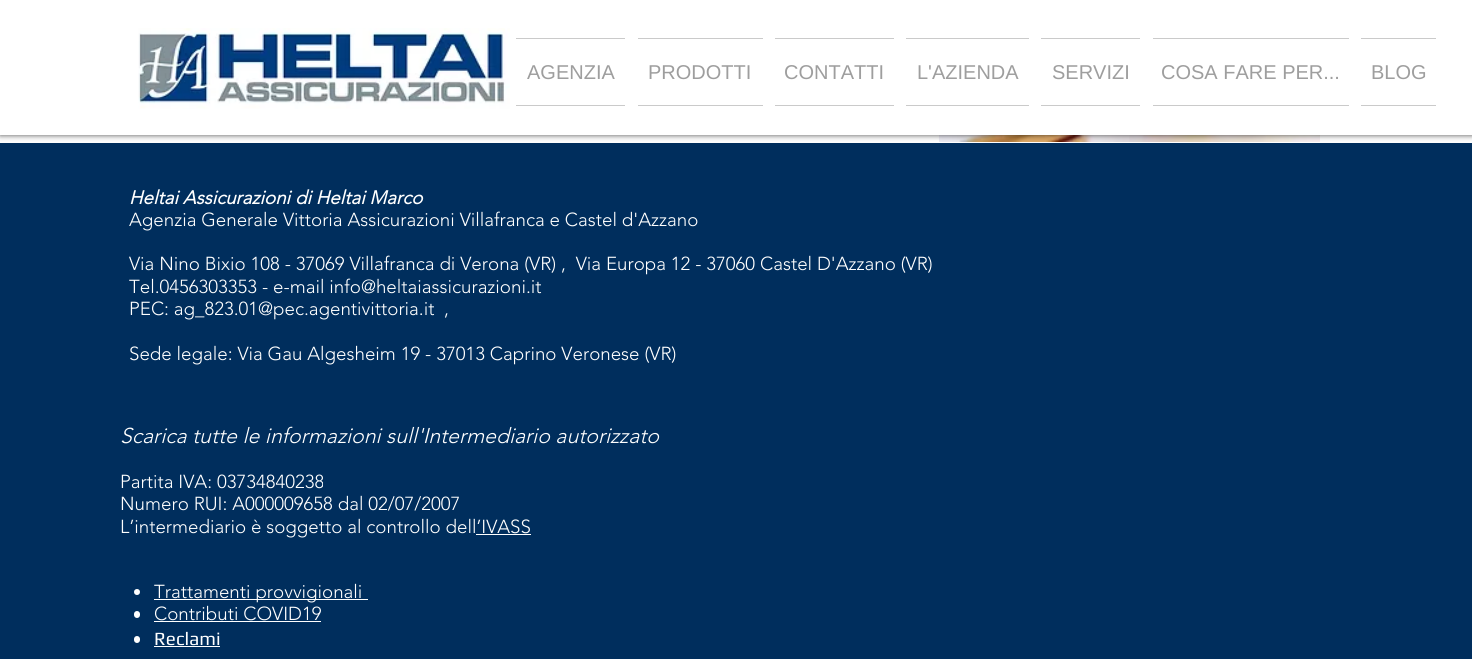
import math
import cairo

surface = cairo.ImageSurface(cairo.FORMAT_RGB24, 1472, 659)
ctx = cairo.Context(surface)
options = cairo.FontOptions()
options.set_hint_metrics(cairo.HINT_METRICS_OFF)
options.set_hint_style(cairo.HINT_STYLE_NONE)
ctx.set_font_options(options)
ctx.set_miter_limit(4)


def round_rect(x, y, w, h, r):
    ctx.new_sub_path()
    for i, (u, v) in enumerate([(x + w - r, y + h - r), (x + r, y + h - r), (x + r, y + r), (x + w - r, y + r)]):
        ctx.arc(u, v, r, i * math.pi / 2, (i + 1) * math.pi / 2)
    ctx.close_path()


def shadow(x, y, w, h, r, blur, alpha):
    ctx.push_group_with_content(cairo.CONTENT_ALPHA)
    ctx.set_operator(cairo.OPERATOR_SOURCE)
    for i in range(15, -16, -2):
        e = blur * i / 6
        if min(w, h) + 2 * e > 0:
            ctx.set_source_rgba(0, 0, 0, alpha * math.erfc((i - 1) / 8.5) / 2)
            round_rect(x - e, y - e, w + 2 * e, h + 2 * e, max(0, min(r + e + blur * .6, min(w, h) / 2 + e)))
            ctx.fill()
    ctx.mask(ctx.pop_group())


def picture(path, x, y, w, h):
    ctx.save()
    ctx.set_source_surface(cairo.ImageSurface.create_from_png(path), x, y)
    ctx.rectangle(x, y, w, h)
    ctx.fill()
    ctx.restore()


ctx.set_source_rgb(1, 1, 1)
ctx.paint()
picture("img2.png", 938, 135, 382, 7)
ctx.set_source_rgb(0, 0.18, 0.365)
ctx.rectangle(0, 143, 1472, 516)
ctx.fill()
ctx.set_source_rgb(0, 0, 0)
shadow(0, 0, 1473, 135, 0, 3, 0.7)
ctx.set_source_rgb(1, 1, 1)
ctx.rectangle(0, 0, 1472, 135)
ctx.fill()
picture("img1.png", 138, 28, 372, 81)
ctx.set_source_rgb(0.792, 0.792, 0.792)
ctx.rectangle(516, 38, 109, 1)
ctx.fill()
ctx.rectangle(516, 105, 109, 1)
ctx.fill()
ctx.select_font_face("Liberation Sans")
ctx.set_font_size(20)
ctx.set_source_rgb(0.62, 0.62, 0.62)
ctx.move_to(527, 79)
ctx.show_text("AGENZIA")
ctx.set_source_rgb(0.792, 0.792, 0.792)
ctx.rectangle(638, 38, 125, 1)
ctx.fill()
ctx.rectangle(638, 105, 125, 1)
ctx.fill()
ctx.set_source_rgb(0.62, 0.62, 0.62)
ctx.move_to(648, 79)
ctx.show_text("PRODOTTI")
ctx.set_source_rgb(0.792, 0.792, 0.792)
ctx.rectangle(775, 38, 119, 1)
ctx.fill()
ctx.rectangle(775, 105, 119, 1)
ctx.fill()
ctx.set_source_rgb(0.62, 0.62, 0.62)
ctx.move_to(784, 79)
ctx.show_text("CONTATTI")
ctx.set_source_rgb(0.792, 0.792, 0.792)
ctx.rectangle(906, 38, 123, 1)
ctx.fill()
ctx.rectangle(906, 105, 123, 1)
ctx.fill()
ctx.set_source_rgb(0.62, 0.62, 0.62)
ctx.move_to(917, 79)
ctx.show_text("L'AZIENDA")
ctx.set_source_rgb(0.792, 0.792, 0.792)
ctx.rectangle(1041, 38, 99, 1)
ctx.fill()
ctx.rectangle(1041, 105, 99, 1)
ctx.fill()
ctx.set_source_rgb(0.62, 0.62, 0.62)
ctx.move_to(1052, 79)
ctx.show_text("SERVIZI")
ctx.set_source_rgb(0.792, 0.792, 0.792)
ctx.rectangle(1153, 38, 196, 1)
ctx.fill()
ctx.rectangle(1153, 105, 196, 1)
ctx.fill()
ctx.set_source_rgb(0.62, 0.62, 0.62)
ctx.move_to(1161, 79)
ctx.show_text("COSA FARE PER...")
ctx.set_source_rgb(0.792, 0.792, 0.792)
ctx.rectangle(1361, 38, 75, 1)
ctx.fill()
ctx.rectangle(1361, 105, 75, 1)
ctx.fill()
ctx.set_source_rgb(0.62, 0.62, 0.62)
ctx.move_to(1371, 79)
ctx.show_text("BLOG")
ctx.select_font_face("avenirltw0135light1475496", cairo.FONT_SLANT_ITALIC, cairo.FONT_WEIGHT_BOLD)
ctx.set_font_size(18.75)
ctx.set_source_rgb(1, 1, 1)
ctx.move_to(129, 204)
ctx.show_text("Heltai Assicurazioni di Heltai Marco")
ctx.select_font_face("avenirltw0135light1475496 Light")
ctx.move_to(129, 226)
ctx.show_text("Agenzia Generale Vittoria Assicurazioni Villafranca e Castel d'Azzano")
ctx.move_to(129, 270)
ctx.show_text("Via Nino Bixio 108 - 37069 Villafranca di Verona (VR) ,  Via Europa 12 - 37060 Castel D'Azzano (VR)")
ctx.move_to(129, 293)
ctx.show_text("Tel.0456303353 - e-mail info@heltaiassicurazioni.it")
ctx.move_to(129, 315)
ctx.show_text("PEC: ag_823.01@pec.agentivittoria.it")
ctx.move_to(444, 315)
ctx.show_text(",")
ctx.move_to(129, 360)
ctx.show_text("Sede legale: Via Gau Algesheim 19 - 37013 Caprino Veronese (VR)")
ctx.select_font_face("avenirltw0135light1475496 Light", cairo.FONT_SLANT_ITALIC)
ctx.set_font_size(21.25)
ctx.move_to(120, 443)
ctx.show_text("Scarica tutte le informazioni sull'Intermediario autorizzato")
ctx.select_font_face("avenirltw0135light1475496 Light")
ctx.set_font_size(18.75)
ctx.move_to(120, 488)
ctx.show_text("Partita IVA: 03734840238")
ctx.move_to(120, 510)
ctx.show_text("Numero RUI: A000009658 dal 02/07/2007")
ctx.move_to(120, 533)
ctx.show_text("L’intermediario è soggetto al controllo dell’IVASS")
ctx.rectangle(476, 534, 55, 1)
ctx.fill()
ctx.arc(137, 592, 3, 0, 2 * math.pi)
ctx.fill()
ctx.rectangle(154, 599, 214, 1)
ctx.fill()
ctx.move_to(154, 598)
ctx.show_text("Trattamenti provvigionali")
round_rect(134, 611, 6, 7, 3)
ctx.fill()
ctx.move_to(154, 620)
ctx.show_text("Contributi COVID19")
ctx.rectangle(154, 621, 167, 1)
ctx.fill()
round_rect(134, 636, 6, 7, 3)
ctx.fill()
ctx.select_font_face("Play")
ctx.move_to(154, 645)
ctx.show_text("Reclami")
ctx.rectangle(154, 646, 66, 1)
ctx.fill()
surface.write_to_png("page.png")
